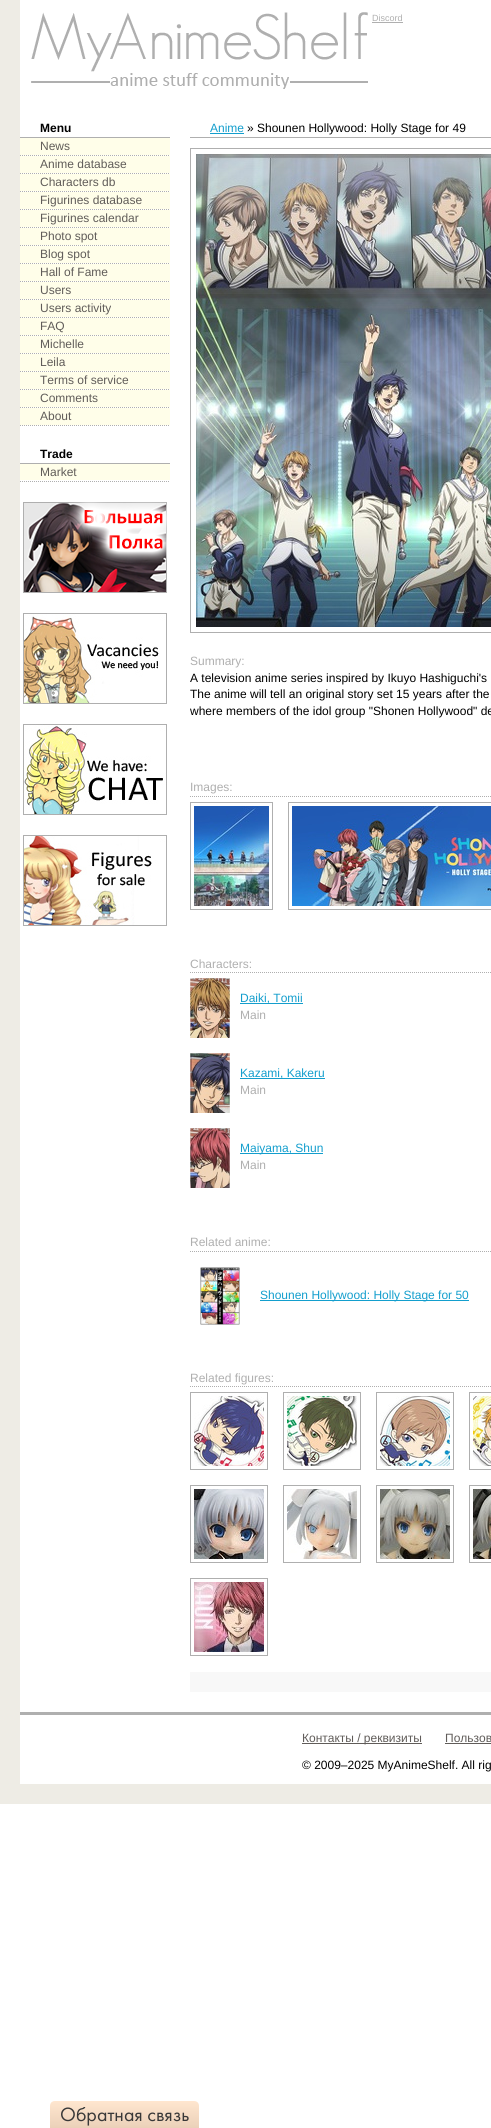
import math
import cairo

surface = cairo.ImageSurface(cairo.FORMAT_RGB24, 491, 2128)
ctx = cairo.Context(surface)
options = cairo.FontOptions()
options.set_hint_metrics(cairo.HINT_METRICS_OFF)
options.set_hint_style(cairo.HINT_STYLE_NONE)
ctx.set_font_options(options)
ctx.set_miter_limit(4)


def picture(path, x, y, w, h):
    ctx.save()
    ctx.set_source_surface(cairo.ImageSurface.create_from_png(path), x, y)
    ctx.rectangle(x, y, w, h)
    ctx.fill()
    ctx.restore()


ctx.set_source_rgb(1, 1, 1)
ctx.paint()
ctx.set_source_rgb(0.933, 0.925, 0.898)
ctx.rectangle(0, 0, 491, 1804)
ctx.fill()
ctx.set_source_rgb(1, 1, 1)
ctx.rectangle(20, 0, 471, 1784)
ctx.fill()
picture("img1.png", 31, 12, 337, 77)
ctx.select_font_face("Liberation Sans")
ctx.set_font_size(9)
ctx.set_source_rgb(0.686, 0.686, 0.686)
ctx.move_to(372, 21)
ctx.show_text("Discord")
ctx.rectangle(372, 22, 31, 1)
ctx.fill()
ctx.rectangle(20, 137, 150, 1)
ctx.fill()
ctx.select_font_face("Liberation Sans", cairo.FONT_SLANT_NORMAL, cairo.FONT_WEIGHT_BOLD)
ctx.set_font_size(12)
ctx.set_source_rgb(0, 0, 0)
ctx.move_to(40, 132)
ctx.show_text("Menu")
ctx.new_path()
ctx.move_to(20, 155.5)
ctx.line_to(170, 155.5)
ctx.set_source_rgb(0.686, 0.686, 0.686)
ctx.set_line_width(1)
ctx.set_dash([1, 1])
ctx.stroke()
ctx.set_source_rgb(1, 0.996, 0.914)
ctx.rectangle(20, 138, 150, 17)
ctx.fill()
ctx.select_font_face("Liberation Sans")
ctx.set_source_rgb(0.376, 0.361, 0.349)
ctx.move_to(40, 150)
ctx.show_text("News")
ctx.new_path()
ctx.move_to(20, 173.5)
ctx.line_to(170, 173.5)
ctx.set_source_rgb(0.686, 0.686, 0.686)
ctx.stroke()
ctx.set_source_rgb(1, 0.996, 0.914)
ctx.rectangle(20, 156, 150, 17)
ctx.fill()
ctx.set_source_rgb(0.376, 0.361, 0.349)
ctx.move_to(40, 168)
ctx.show_text("Anime database")
ctx.new_path()
ctx.move_to(20, 191.5)
ctx.line_to(170, 191.5)
ctx.set_source_rgb(0.686, 0.686, 0.686)
ctx.stroke()
ctx.set_source_rgb(1, 0.996, 0.914)
ctx.rectangle(20, 174, 150, 17)
ctx.fill()
ctx.set_source_rgb(0.376, 0.361, 0.349)
ctx.move_to(40, 186)
ctx.show_text("Characters db")
ctx.new_path()
ctx.move_to(20, 209.5)
ctx.line_to(170, 209.5)
ctx.set_source_rgb(0.686, 0.686, 0.686)
ctx.stroke()
ctx.set_source_rgb(1, 0.996, 0.914)
ctx.rectangle(20, 192, 150, 17)
ctx.fill()
ctx.set_source_rgb(0.376, 0.361, 0.349)
ctx.move_to(40, 204)
ctx.show_text("Figurines database")
ctx.new_path()
ctx.move_to(20, 227.5)
ctx.line_to(170, 227.5)
ctx.set_source_rgb(0.686, 0.686, 0.686)
ctx.stroke()
ctx.set_source_rgb(1, 0.996, 0.914)
ctx.rectangle(20, 210, 150, 17)
ctx.fill()
ctx.set_source_rgb(0.376, 0.361, 0.349)
ctx.move_to(40, 222)
ctx.show_text("Figurines calendar")
ctx.new_path()
ctx.move_to(20, 245.5)
ctx.line_to(170, 245.5)
ctx.set_source_rgb(0.686, 0.686, 0.686)
ctx.stroke()
ctx.set_source_rgb(1, 0.996, 0.914)
ctx.rectangle(20, 228, 150, 17)
ctx.fill()
ctx.set_source_rgb(0.376, 0.361, 0.349)
ctx.move_to(40, 240)
ctx.show_text("Photo spot")
ctx.new_path()
ctx.move_to(20, 263.5)
ctx.line_to(170, 263.5)
ctx.set_source_rgb(0.686, 0.686, 0.686)
ctx.stroke()
ctx.set_source_rgb(1, 0.996, 0.914)
ctx.rectangle(20, 246, 150, 17)
ctx.fill()
ctx.set_source_rgb(0.376, 0.361, 0.349)
ctx.move_to(40, 258)
ctx.show_text("Blog spot")
ctx.new_path()
ctx.move_to(20, 281.5)
ctx.line_to(170, 281.5)
ctx.set_source_rgb(0.686, 0.686, 0.686)
ctx.stroke()
ctx.set_source_rgb(1, 0.996, 0.914)
ctx.rectangle(20, 264, 150, 17)
ctx.fill()
ctx.set_source_rgb(0.376, 0.361, 0.349)
ctx.move_to(40, 276)
ctx.show_text("Hall of Fame")
ctx.new_path()
ctx.move_to(20, 299.5)
ctx.line_to(170, 299.5)
ctx.set_source_rgb(0.686, 0.686, 0.686)
ctx.stroke()
ctx.set_source_rgb(1, 0.996, 0.914)
ctx.rectangle(20, 282, 150, 17)
ctx.fill()
ctx.set_source_rgb(0.376, 0.361, 0.349)
ctx.move_to(40, 294)
ctx.show_text("Users")
ctx.new_path()
ctx.move_to(20, 317.5)
ctx.line_to(170, 317.5)
ctx.set_source_rgb(0.686, 0.686, 0.686)
ctx.stroke()
ctx.set_source_rgb(1, 0.996, 0.914)
ctx.rectangle(20, 300, 150, 17)
ctx.fill()
ctx.set_source_rgb(0.376, 0.361, 0.349)
ctx.move_to(40, 312)
ctx.show_text("Users activity")
ctx.new_path()
ctx.move_to(20, 335.5)
ctx.line_to(170, 335.5)
ctx.set_source_rgb(0.686, 0.686, 0.686)
ctx.stroke()
ctx.set_source_rgb(1, 0.996, 0.914)
ctx.rectangle(20, 318, 150, 17)
ctx.fill()
ctx.set_source_rgb(0.376, 0.361, 0.349)
ctx.move_to(40, 330)
ctx.show_text("FAQ")
ctx.new_path()
ctx.move_to(20, 353.5)
ctx.line_to(170, 353.5)
ctx.set_source_rgb(0.686, 0.686, 0.686)
ctx.stroke()
ctx.set_source_rgb(1, 0.996, 0.914)
ctx.rectangle(20, 336, 150, 17)
ctx.fill()
ctx.set_source_rgb(0.376, 0.361, 0.349)
ctx.move_to(40, 348)
ctx.show_text("Michelle")
ctx.new_path()
ctx.move_to(20, 371.5)
ctx.line_to(170, 371.5)
ctx.set_source_rgb(0.686, 0.686, 0.686)
ctx.stroke()
ctx.set_source_rgb(1, 0.996, 0.914)
ctx.rectangle(20, 354, 150, 17)
ctx.fill()
ctx.set_source_rgb(0.376, 0.361, 0.349)
ctx.move_to(40, 366)
ctx.show_text("Leila")
ctx.new_path()
ctx.move_to(20, 389.5)
ctx.line_to(170, 389.5)
ctx.set_source_rgb(0.686, 0.686, 0.686)
ctx.stroke()
ctx.set_source_rgb(1, 0.996, 0.914)
ctx.rectangle(20, 372, 150, 17)
ctx.fill()
ctx.set_source_rgb(0.376, 0.361, 0.349)
ctx.move_to(40, 384)
ctx.show_text("Terms of service")
ctx.new_path()
ctx.move_to(20, 407.5)
ctx.line_to(170, 407.5)
ctx.set_source_rgb(0.686, 0.686, 0.686)
ctx.stroke()
ctx.set_source_rgb(1, 0.996, 0.914)
ctx.rectangle(20, 390, 150, 17)
ctx.fill()
ctx.set_source_rgb(0.376, 0.361, 0.349)
ctx.move_to(40, 402)
ctx.show_text("Comments")
ctx.new_path()
ctx.move_to(20, 425.5)
ctx.line_to(170, 425.5)
ctx.set_source_rgb(0.686, 0.686, 0.686)
ctx.stroke()
ctx.set_source_rgb(1, 0.996, 0.914)
ctx.rectangle(20, 408, 150, 17)
ctx.fill()
ctx.set_source_rgb(0.376, 0.361, 0.349)
ctx.move_to(40, 420)
ctx.show_text("About")
ctx.set_source_rgb(0.686, 0.686, 0.686)
ctx.rectangle(20, 463, 150, 1)
ctx.fill()
ctx.select_font_face("Liberation Sans", cairo.FONT_SLANT_NORMAL, cairo.FONT_WEIGHT_BOLD)
ctx.set_source_rgb(0, 0, 0)
ctx.move_to(40, 458)
ctx.show_text("Trade")
ctx.new_path()
ctx.move_to(20, 481.5)
ctx.line_to(170, 481.5)
ctx.set_source_rgb(0.686, 0.686, 0.686)
ctx.stroke()
ctx.set_source_rgb(1, 0.996, 0.914)
ctx.rectangle(20, 464, 150, 16)
ctx.fill()
ctx.select_font_face("Liberation Sans")
ctx.set_source_rgb(0.376, 0.361, 0.349)
ctx.move_to(40, 476)
ctx.show_text("Market")
picture("img2.png", 23, 502, 144, 91)
picture("img3.png", 23, 613, 144, 91)
picture("img4.png", 23, 724, 144, 91)
picture("img5.png", 23, 835, 144, 91)
ctx.set_source_rgb(0.686, 0.686, 0.686)
ctx.rectangle(190, 137, 301, 1)
ctx.fill()
ctx.set_source_rgb(0.075, 0.62, 0.804)
ctx.move_to(210, 132)
ctx.show_text("Anime")
ctx.rectangle(210, 133, 34, 1)
ctx.fill()
ctx.set_source_rgb(0, 0, 0)
ctx.move_to(247, 132)
ctx.show_text("» Shounen Hollywood: Holly Stage for 49")
ctx.rectangle(190.5, 148.5, 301, 484)
ctx.set_source_rgb(0.686, 0.686, 0.686)
ctx.set_dash([])
ctx.stroke()
picture("img6.png", 196, 154, 295, 473)
ctx.move_to(190, 665)
ctx.show_text("Summary:")
ctx.set_source_rgb(0, 0, 0)
ctx.move_to(190, 682)
ctx.show_text("A television anime series inspired by Ikuyo Hashiguchi's")
ctx.move_to(190, 698)
ctx.show_text("The anime will tell an original story set 15 years after the")
ctx.move_to(190, 715)
ctx.show_text("where members of the idol group \"Shonen Hollywood\" de")
ctx.new_path()
ctx.move_to(190, 796.5)
ctx.line_to(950, 796.5)
ctx.set_source_rgb(0.686, 0.686, 0.686)
ctx.set_dash([1, 1])
ctx.stroke()
ctx.move_to(190, 791)
ctx.show_text("Images:")
ctx.rectangle(190.5, 802.5, 82, 107)
ctx.set_dash([])
ctx.stroke()
picture("img7.png", 194, 806, 75, 100)
ctx.rectangle(288.5, 802.5, 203, 107)
ctx.stroke()
picture("img8.png", 292, 806, 199, 100)
ctx.new_path()
ctx.move_to(190, 972.5)
ctx.line_to(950, 972.5)
ctx.set_dash([1, 1])
ctx.stroke()
ctx.move_to(190, 968)
ctx.show_text("Characters:")
picture("img9.png", 190, 978, 40, 60)
ctx.set_source_rgb(0.075, 0.62, 0.804)
ctx.rectangle(240, 1003, 63, 1)
ctx.fill()
ctx.move_to(240, 1002)
ctx.show_text("Daiki, Tomii")
ctx.set_source_rgb(0.686, 0.686, 0.686)
ctx.move_to(240, 1019)
ctx.show_text("Main")
picture("img10.png", 190, 1053, 40, 60)
ctx.set_source_rgb(0.075, 0.62, 0.804)
ctx.rectangle(240, 1078, 85, 1)
ctx.fill()
ctx.move_to(240, 1077)
ctx.show_text("Kazami, Kakeru")
ctx.set_source_rgb(0.686, 0.686, 0.686)
ctx.move_to(240, 1094)
ctx.show_text("Main")
picture("img11.png", 190, 1128, 40, 60)
ctx.set_source_rgb(0.075, 0.62, 0.804)
ctx.rectangle(240, 1153, 83, 1)
ctx.fill()
ctx.move_to(240, 1152)
ctx.show_text("Maiyama, Shun")
ctx.set_source_rgb(0.686, 0.686, 0.686)
ctx.move_to(240, 1169)
ctx.show_text("Main")
ctx.new_path()
ctx.move_to(190, 1251.5)
ctx.line_to(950, 1251.5)
ctx.stroke()
ctx.move_to(190, 1246)
ctx.show_text("Related anime:")
picture("img12.png", 200, 1267, 40, 58)
ctx.set_source_rgb(0.075, 0.62, 0.804)
ctx.rectangle(260, 1300, 209, 1)
ctx.fill()
ctx.move_to(260, 1299)
ctx.show_text("Shounen Hollywood: Holly Stage for 50")
ctx.new_path()
ctx.move_to(190, 1386.5)
ctx.line_to(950, 1386.5)
ctx.set_source_rgb(0.686, 0.686, 0.686)
ctx.stroke()
ctx.move_to(190, 1382)
ctx.show_text("Related figures:")
ctx.rectangle(190.5, 1392.5, 77, 77)
ctx.set_dash([])
ctx.stroke()
picture("img13.png", 194, 1396, 70, 70)
ctx.rectangle(283.5, 1392.5, 77, 77)
ctx.stroke()
picture("img14.png", 287, 1396, 70, 70)
ctx.rectangle(376.5, 1392.5, 77, 77)
ctx.stroke()
picture("img15.png", 380, 1396, 70, 70)
ctx.rectangle(469.5, 1392.5, 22, 77)
ctx.stroke()
picture("img16.png", 473, 1396, 18, 70)
ctx.rectangle(190.5, 1485.5, 77, 77)
ctx.stroke()
picture("img17.png", 194, 1489, 70, 70)
ctx.rectangle(283.5, 1485.5, 77, 77)
ctx.stroke()
picture("img18.png", 287, 1489, 70, 70)
ctx.rectangle(376.5, 1485.5, 77, 77)
ctx.stroke()
picture("img19.png", 380, 1489, 70, 70)
ctx.rectangle(469.5, 1485.5, 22, 77)
ctx.stroke()
picture("img20.png", 473, 1489, 18, 70)
ctx.rectangle(190.5, 1578.5, 77, 77)
ctx.stroke()
picture("img21.png", 194, 1582, 70, 70)
ctx.set_source_rgb(0.969, 0.969, 0.969)
ctx.rectangle(190, 1672, 301, 20)
ctx.fill()
ctx.set_source_rgb(0.686, 0.686, 0.686)
ctx.rectangle(20, 1712, 471, 3)
ctx.fill()
ctx.set_source_rgb(0.376, 0.361, 0.349)
ctx.rectangle(302, 1743, 120, 1)
ctx.fill()
ctx.move_to(302, 1742)
ctx.show_text("Контакты / реквизиты")
ctx.move_to(445, 1742)
ctx.show_text("Пользов")
ctx.rectangle(445, 1743, 46, 1)
ctx.fill()
ctx.set_source_rgb(0, 0, 0)
ctx.move_to(302, 1769)
ctx.show_text("© 2009–2025 MyAnimeShelf. All rig")
gradient = cairo.LinearGradient(125, 2101, 125, 2128)
gradient.add_color_stop_rgba(0, 1, 0.902, 0.812, 1)
gradient.add_color_stop_rgba(1, 0.922, 0.82, 0.725, 1)
ctx.set_source(gradient)
ctx.new_path()
ctx.move_to(55, 2101)
ctx.line_to(194, 2101)
ctx.curve_to(197, 2101, 199, 2103, 199, 2106)
ctx.line_to(199, 2128)
ctx.line_to(50, 2128)
ctx.line_to(50, 2106)
ctx.curve_to(50, 2103, 52, 2101, 55, 2101)
ctx.close_path()
ctx.fill()
ctx.select_font_face("Futura PT")
ctx.set_font_size(20)
ctx.set_source_rgb(0.22, 0.22, 0.22)
ctx.move_to(60, 2121)
ctx.show_text("Обратная связь")
surface.write_to_png("page.png")
